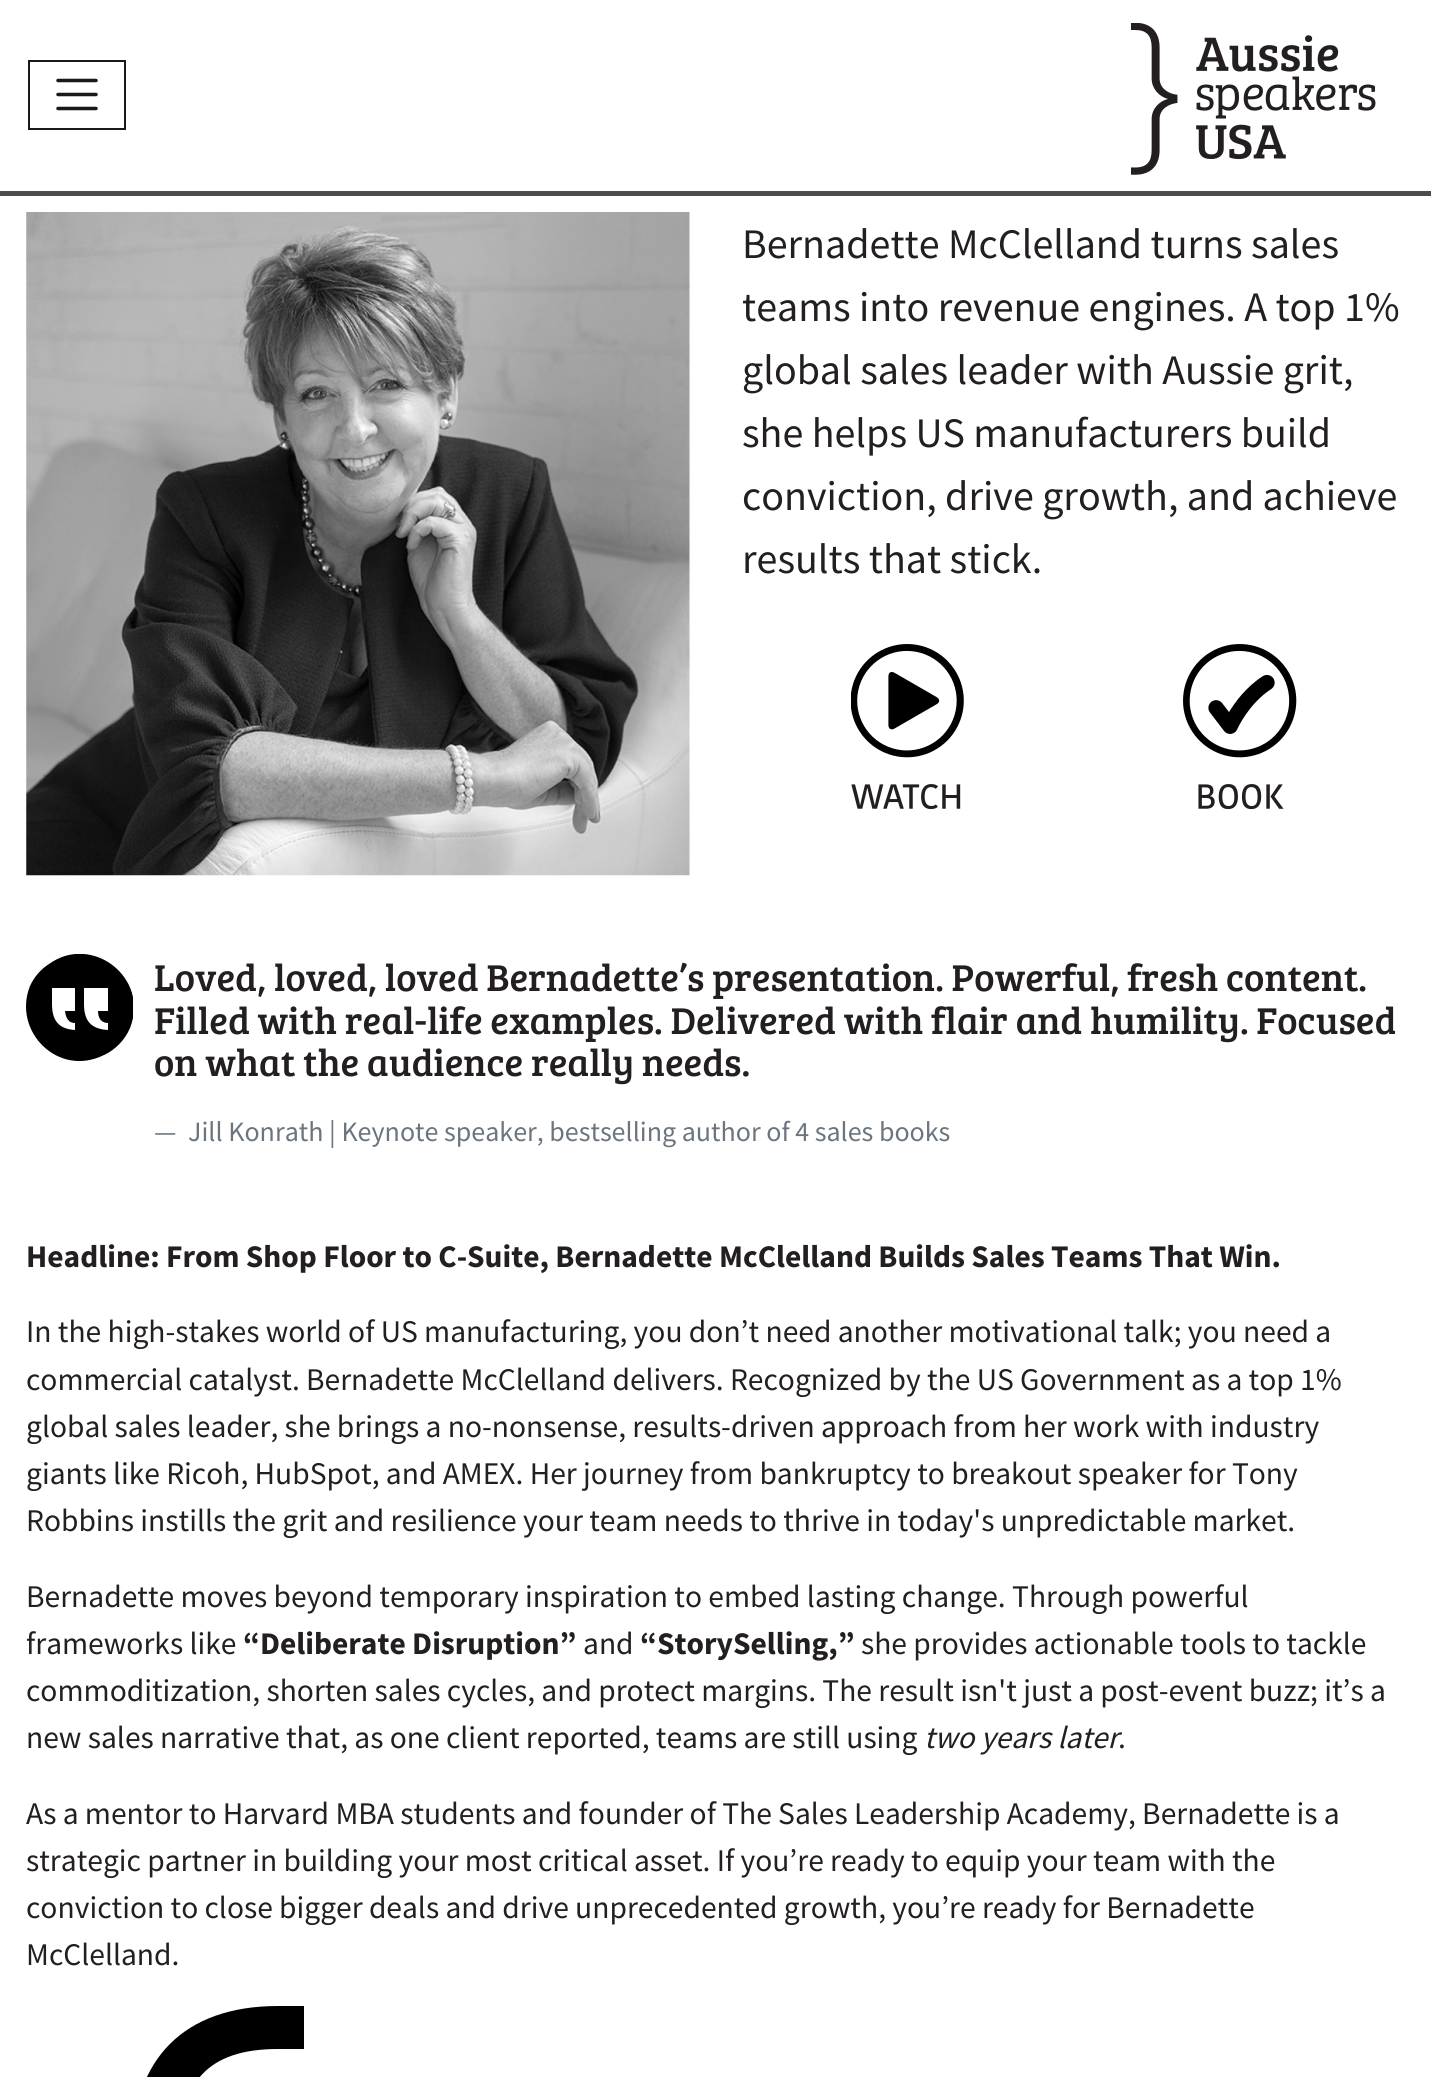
import math
import cairo

surface = cairo.ImageSurface(cairo.FORMAT_RGB24, 1431, 2077)
ctx = cairo.Context(surface)
options = cairo.FontOptions()
options.set_hint_metrics(cairo.HINT_METRICS_OFF)
options.set_hint_style(cairo.HINT_STYLE_NONE)
ctx.set_font_options(options)
ctx.set_miter_limit(4)


def picture(path, x, y, w, h):
    ctx.save()
    ctx.set_source_surface(cairo.ImageSurface.create_from_png(path), x, y)
    ctx.rectangle(x, y, w, h)
    ctx.fill()
    ctx.restore()


ctx.set_source_rgb(1, 1, 1)
ctx.paint()
ctx.set_source_rgb(0.302, 0.298, 0.298)
ctx.rectangle(0, 191, 1431, 5)
ctx.fill()
ctx.rectangle(29, 61, 96, 68)
ctx.set_source_rgb(0.102, 0.098, 0.098)
ctx.stroke()
ctx.new_path()
ctx.move_to(58, 80.5)
ctx.line_to(96, 80.5)
ctx.move_to(58, 94.5)
ctx.line_to(96, 94.5)
ctx.move_to(58, 108.5)
ctx.line_to(96, 108.5)
ctx.set_line_width(3.5)
ctx.set_line_cap(cairo.LINE_CAP_ROUND)
ctx.stroke()
picture("img1.png", 1131, 23, 245, 152)
picture("img2.png", 26, 212, 664, 664)
ctx.select_font_face("Source Sans Pro")
ctx.set_font_size(42)
ctx.set_source_rgb(0.137, 0.122, 0.125)
ctx.move_to(742, 258)
ctx.show_text("Bernadette McClelland turns sales")
ctx.move_to(742, 321)
ctx.show_text("teams into revenue engines. A top 1%")
ctx.move_to(742, 384)
ctx.show_text("global sales leader with Aussie grit,")
ctx.move_to(742, 447)
ctx.show_text("she helps US manufacturers build")
ctx.move_to(742, 510)
ctx.show_text("conviction, drive growth, and achieve")
ctx.move_to(742, 573)
ctx.show_text("results that stick.")
picture("img3.png", 851, 644, 113, 166)
picture("img4.png", 1183, 644, 114, 166)
ctx.save()
ctx.rectangle(26, 954, 107, 108)
ctx.clip()
ctx.set_source_rgb(0, 0, 0)
ctx.new_path()
ctx.move_to(52, 1004)
ctx.curve_to(52, 1021, 59, 1029, 75, 1030)
ctx.line_to(75, 1023)
ctx.curve_to(69, 1023, 66, 1019, 65, 1011)
ctx.line_to(75, 1011)
ctx.line_to(75, 988)
ctx.line_to(52, 988)
ctx.close_path()
ctx.move_to(84, 1004)
ctx.curve_to(84, 1021, 91, 1029, 108, 1030)
ctx.line_to(108, 1023)
ctx.curve_to(102, 1023, 98, 1019, 98, 1011)
ctx.line_to(108, 1011)
ctx.line_to(108, 988)
ctx.line_to(84, 988)
ctx.close_path()
ctx.move_to(30, 986)
ctx.curve_to(34, 977, 41, 969, 49, 964)
ctx.curve_to(92, 933, 150, 978, 130, 1028)
ctx.curve_to(125, 1040, 115, 1050, 104, 1055)
ctx.curve_to(58, 1078, 12, 1031, 30, 986)
ctx.fill()
ctx.restore()
ctx.select_font_face("Bree Serif")
ctx.set_font_size(38.5)
ctx.move_to(154, 991)
ctx.show_text("Loved, loved, loved Bernadette’s presentation. Powerful, fresh content.")
ctx.move_to(154, 1034)
ctx.show_text("Filled with real-life examples. Delivered with flair and humility. Focused")
ctx.move_to(154, 1076)
ctx.show_text("on what the audience really needs.")
ctx.select_font_face("Source Sans Pro")
ctx.set_font_size(28)
ctx.set_source_rgb(0.424, 0.459, 0.49)
ctx.move_to(154, 1141)
ctx.show_text("—")
ctx.move_to(188, 1141)
ctx.show_text("Jill Konrath | Keynote speaker, bestselling author of 4 sales books")
ctx.select_font_face("Source Sans Pro", cairo.FONT_SLANT_NORMAL, cairo.FONT_WEIGHT_BOLD)
ctx.set_font_size(31.5)
ctx.set_source_rgb(0.137, 0.122, 0.125)
ctx.move_to(26, 1267)
ctx.show_text("Headline: From Shop Floor to C-Suite, Bernadette McClelland Builds Sales Teams That Win.")
ctx.select_font_face("Source Sans Pro")
ctx.move_to(26, 1342)
ctx.show_text("In the high-stakes world of US manufacturing, you don’t need another motivational talk; you need a")
ctx.move_to(26, 1390)
ctx.show_text("commercial catalyst. Bernadette McClelland delivers. Recognized by the US Government as a top 1%")
ctx.move_to(26, 1437)
ctx.show_text("global sales leader, she brings a no-nonsense, results-driven approach from her work with industry")
ctx.move_to(26, 1484)
ctx.show_text("giants like Ricoh, HubSpot, and AMEX. Her journey from bankruptcy to breakout speaker for Tony")
ctx.move_to(26, 1531)
ctx.show_text("Robbins instills the grit and resilience your team needs to thrive in today's unpredictable market.")
ctx.move_to(26, 1607)
ctx.show_text("Bernadette moves beyond temporary inspiration to embed lasting change. Through powerful")
ctx.move_to(26, 1654)
ctx.show_text("frameworks like")
ctx.select_font_face("Source Sans Pro", cairo.FONT_SLANT_NORMAL, cairo.FONT_WEIGHT_BOLD)
ctx.move_to(243, 1654)
ctx.show_text("“Deliberate Disruption”")
ctx.select_font_face("Source Sans Pro")
ctx.move_to(583, 1654)
ctx.show_text("and")
ctx.select_font_face("Source Sans Pro", cairo.FONT_SLANT_NORMAL, cairo.FONT_WEIGHT_BOLD)
ctx.move_to(640, 1654)
ctx.show_text("“StorySelling,”")
ctx.select_font_face("Source Sans Pro")
ctx.move_to(861, 1654)
ctx.show_text("she provides actionable tools to tackle")
ctx.move_to(26, 1701)
ctx.show_text("commoditization, shorten sales cycles, and protect margins. The result isn't just a post-event buzz; it’s a")
ctx.move_to(26, 1748)
ctx.show_text("new sales narrative that, as one client reported, teams are still using")
ctx.select_font_face("Source Sans Pro", cairo.FONT_SLANT_ITALIC)
ctx.move_to(924, 1748)
ctx.show_text("two years later")
ctx.select_font_face("Source Sans Pro")
ctx.move_to(1118, 1748)
ctx.show_text(".")
ctx.move_to(26, 1824)
ctx.show_text("As a mentor to Harvard MBA students and founder of The Sales Leadership Academy, Bernadette is a")
ctx.move_to(26, 1871)
ctx.show_text("strategic partner in building your most critical asset. If you’re ready to equip your team with the")
ctx.move_to(26, 1918)
ctx.show_text("conviction to close bigger deals and drive unprecedented growth, you’re ready for Bernadette")
ctx.move_to(26, 1965)
ctx.show_text("McClelland.")
ctx.set_source_rgb(0, 0, 0)
ctx.new_path()
ctx.move_to(26, 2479)
ctx.line_to(26, 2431)
ctx.curve_to(81, 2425, 132, 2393, 132, 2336)
ctx.line_to(132, 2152)
ctx.curve_to(132, 2059, 184, 2006, 278, 2006)
ctx.line_to(304, 2006)
ctx.line_to(304, 2049)
ctx.line_to(278, 2049)
ctx.curve_to(207, 2049, 179, 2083, 179, 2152)
ctx.line_to(179, 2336)
ctx.curve_to(179, 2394, 137, 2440, 83, 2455)
ctx.curve_to(137, 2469, 179, 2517, 179, 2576)
ctx.line_to(179, 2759)
ctx.curve_to(179, 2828, 207, 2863, 278, 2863)
ctx.line_to(304, 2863)
ctx.line_to(304, 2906)
ctx.line_to(278, 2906)
ctx.curve_to(184, 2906, 132, 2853, 132, 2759)
ctx.line_to(132, 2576)
ctx.curve_to(132, 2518, 81, 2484, 26, 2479)
ctx.fill()
surface.write_to_png("page.png")
